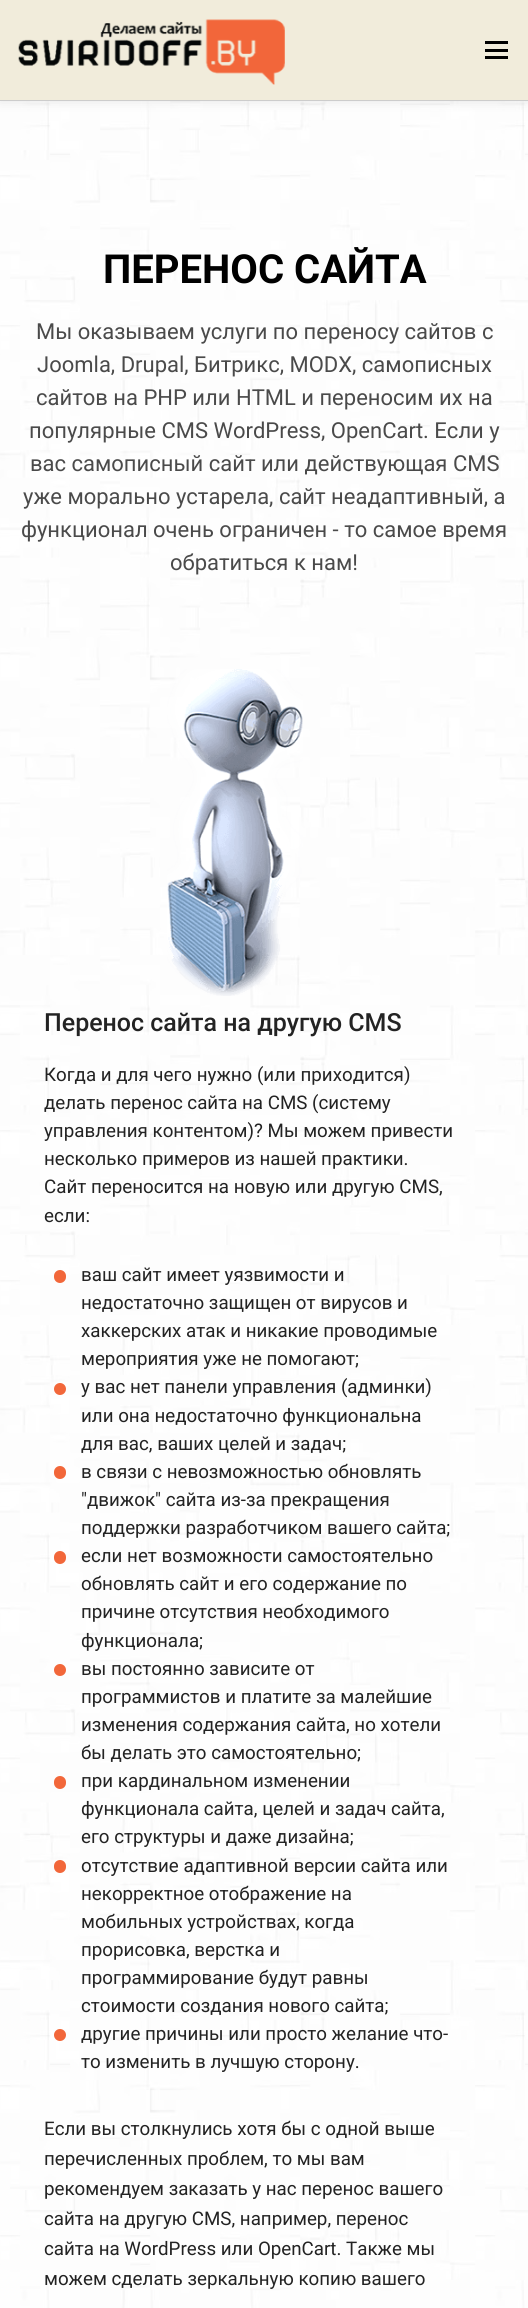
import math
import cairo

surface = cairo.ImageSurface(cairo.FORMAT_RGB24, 528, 2308)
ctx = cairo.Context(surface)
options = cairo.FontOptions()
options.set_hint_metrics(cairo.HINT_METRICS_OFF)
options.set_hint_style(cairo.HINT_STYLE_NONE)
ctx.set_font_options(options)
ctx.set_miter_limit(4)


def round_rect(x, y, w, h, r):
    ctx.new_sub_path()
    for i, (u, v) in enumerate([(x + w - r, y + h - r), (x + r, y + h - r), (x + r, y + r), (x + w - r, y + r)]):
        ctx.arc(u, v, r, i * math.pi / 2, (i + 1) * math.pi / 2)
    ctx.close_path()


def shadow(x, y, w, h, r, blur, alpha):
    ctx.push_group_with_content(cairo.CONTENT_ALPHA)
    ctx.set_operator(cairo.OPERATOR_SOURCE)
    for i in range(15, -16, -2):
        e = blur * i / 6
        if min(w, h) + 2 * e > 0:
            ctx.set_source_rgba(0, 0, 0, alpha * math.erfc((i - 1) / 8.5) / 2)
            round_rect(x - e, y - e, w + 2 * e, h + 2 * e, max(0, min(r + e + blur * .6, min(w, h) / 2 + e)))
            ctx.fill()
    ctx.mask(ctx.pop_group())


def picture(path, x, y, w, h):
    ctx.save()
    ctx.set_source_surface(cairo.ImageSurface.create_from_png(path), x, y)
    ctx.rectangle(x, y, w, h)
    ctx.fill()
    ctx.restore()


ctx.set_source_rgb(1, 1, 1)
ctx.paint()
picture("img1.png", 0, 101, 528, 2207)
ctx.set_source_rgba(1, 1, 1, 0.5)
ctx.rectangle(0, 101, 528, 529)
ctx.fill()
ctx.set_source_rgb(0, 0, 0)
shadow(0, 0, 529, 101, 0, 6, 0.1)
ctx.set_source_rgb(0.945, 0.922, 0.859)
ctx.rectangle(0, 0, 528, 100)
ctx.fill()
ctx.set_source_rgb(0.8, 0.8, 0.8)
ctx.rectangle(0, 100, 528, 1)
ctx.fill()
picture("img2.png", 18, 19, 267, 66)
ctx.set_source_rgb(0, 0, 0)
ctx.rectangle(485, 56, 23, 3)
ctx.fill()
ctx.rectangle(485, 49, 23, 3)
ctx.fill()
ctx.rectangle(485, 41, 23, 3)
ctx.fill()
ctx.select_font_face("Roboto", cairo.FONT_SLANT_NORMAL, cairo.FONT_WEIGHT_BOLD)
ctx.set_font_size(40)
ctx.move_to(103, 283)
ctx.show_text("ПЕРЕНОС САЙТА")
ctx.select_font_face("Roboto")
ctx.set_font_size(22)
ctx.set_source_rgb(0.29, 0.29, 0.29)
ctx.move_to(36, 339)
ctx.show_text("Мы оказываем услуги по переносу сайтов с")
ctx.move_to(37, 372)
ctx.show_text("Joomla, Drupal, Битрикс, MODX, самописных")
ctx.move_to(36, 405)
ctx.show_text("сайтов на РНР или HTML и переносим их на")
ctx.move_to(29, 438)
ctx.show_text("популярные CMS WordPress, OpenCart. Если у")
ctx.move_to(30, 471)
ctx.show_text("вас самописный сайт или действующая CMS")
ctx.move_to(23, 504)
ctx.show_text("уже морально устарела, сайт неадаптивный, а")
ctx.move_to(21, 537)
ctx.show_text("функционал очень ограничен - то самое время")
ctx.move_to(170, 570)
ctx.show_text("обратиться к нам!")
ctx.set_source_rgba(1, 1, 1, 0.5)
ctx.rectangle(0, 630, 528, 1678)
ctx.fill()
picture("img3.png", 167, 669, 136, 327)
ctx.select_font_face("Roboto Medium")
ctx.set_font_size(25)
ctx.set_source_rgb(0.137, 0.137, 0.137)
ctx.move_to(44, 1031)
ctx.show_text("Перенос сайта на другую CMS")
ctx.select_font_face("Roboto")
ctx.set_font_size(18.75)
ctx.move_to(44, 1081)
ctx.show_text("Когда и для чего нужно (или приходится)")
ctx.move_to(44, 1109)
ctx.show_text("делать перенос сайта на CMS (систему")
ctx.move_to(44, 1137)
ctx.show_text("управления контентом)? Мы можем привести")
ctx.move_to(44, 1165)
ctx.show_text("несколько примеров из нашей практики.")
ctx.move_to(44, 1193)
ctx.show_text("Сайт переносится на новую или другую CMS,")
ctx.move_to(44, 1222)
ctx.show_text("если:")
ctx.set_source_rgb(0.949, 0.404, 0.227)
round_rect(54, 1270, 12, 13, 6)
ctx.fill()
ctx.set_source_rgb(0.137, 0.137, 0.137)
ctx.move_to(81, 1281)
ctx.show_text("ваш сайт имеет уязвимости и")
ctx.move_to(81, 1309)
ctx.show_text("недостаточно защищен от вирусов и")
ctx.move_to(81, 1337)
ctx.show_text("хаккерских атак и никакие проводимые")
ctx.move_to(81, 1365)
ctx.show_text("мероприятия уже не помогают;")
ctx.set_source_rgb(0.949, 0.404, 0.227)
ctx.new_path()
ctx.arc(60, 1389, 6, 0, 2 * math.pi)
ctx.fill()
ctx.set_source_rgb(0.137, 0.137, 0.137)
ctx.move_to(81, 1393)
ctx.show_text("у вас нет панели управления (админки)")
ctx.move_to(81, 1422)
ctx.show_text("или она недостаточно функциональна")
ctx.move_to(81, 1450)
ctx.show_text("для вас, ваших целей и задач;")
ctx.set_source_rgb(0.949, 0.404, 0.227)
round_rect(54, 1466, 12, 13, 6)
ctx.fill()
ctx.set_source_rgb(0.137, 0.137, 0.137)
ctx.move_to(81, 1478)
ctx.show_text("в связи с невозможностью обновлять")
ctx.move_to(81, 1506)
ctx.show_text("\"движок\" сайта из-за прекращения")
ctx.move_to(81, 1534)
ctx.show_text("поддержки разработчиком вашего сайта;")
ctx.set_source_rgb(0.949, 0.404, 0.227)
round_rect(54, 1551, 12, 13, 6)
ctx.fill()
ctx.set_source_rgb(0.137, 0.137, 0.137)
ctx.move_to(81, 1562)
ctx.show_text("если нет возможности самостоятельно")
ctx.move_to(81, 1590)
ctx.show_text("обновлять сайт и его содержание по")
ctx.move_to(81, 1618)
ctx.show_text("причине отсутствия необходимого")
ctx.move_to(81, 1647)
ctx.show_text("функционала;")
ctx.set_source_rgb(0.949, 0.404, 0.227)
ctx.new_path()
ctx.arc(60, 1670, 6, 0, 2 * math.pi)
ctx.fill()
ctx.set_source_rgb(0.137, 0.137, 0.137)
ctx.move_to(81, 1675)
ctx.show_text("вы постоянно зависите от")
ctx.move_to(81, 1703)
ctx.show_text("программистов и платите за малейшие")
ctx.move_to(81, 1731)
ctx.show_text("изменения содержания сайта, но хотели")
ctx.move_to(81, 1759)
ctx.show_text("бы делать это самостоятельно;")
ctx.set_source_rgb(0.949, 0.404, 0.227)
round_rect(54, 1776, 12, 13, 6)
ctx.fill()
ctx.set_source_rgb(0.137, 0.137, 0.137)
ctx.move_to(81, 1787)
ctx.show_text("при кардинальном изменении")
ctx.move_to(81, 1815)
ctx.show_text("функционала сайта, целей и задач сайта,")
ctx.move_to(81, 1843)
ctx.show_text("его структуры и даже дизайна;")
ctx.set_source_rgb(0.949, 0.404, 0.227)
round_rect(54, 1860, 12, 13, 6)
ctx.fill()
ctx.set_source_rgb(0.137, 0.137, 0.137)
ctx.move_to(81, 1872)
ctx.show_text("отсутствие адаптивной версии сайта или")
ctx.move_to(81, 1900)
ctx.show_text("некорректное отображение на")
ctx.move_to(81, 1928)
ctx.show_text("мобильных устройствах, когда")
ctx.move_to(81, 1956)
ctx.show_text("прорисовка, верстка и")
ctx.move_to(81, 1984)
ctx.show_text("программирование будут равны")
ctx.move_to(81, 2012)
ctx.show_text("стоимости создания нового сайта;")
ctx.set_source_rgb(0.949, 0.404, 0.227)
ctx.new_path()
ctx.arc(60, 2035, 6, 0, 2 * math.pi)
ctx.fill()
ctx.set_source_rgb(0.137, 0.137, 0.137)
ctx.move_to(81, 2040)
ctx.show_text("другие причины или просто желание что-")
ctx.move_to(81, 2068)
ctx.show_text("то изменить в лучшую сторону.")
ctx.move_to(44, 2135)
ctx.show_text("Если вы столкнулись хотя бы с одной выше")
ctx.move_to(44, 2165)
ctx.show_text("перечисленных проблем, то мы вам")
ctx.move_to(44, 2195)
ctx.show_text("рекомендуем заказать у нас перенос вашего")
ctx.move_to(44, 2225)
ctx.show_text("сайта на другую CMS, например, перенос")
ctx.move_to(44, 2255)
ctx.show_text("сайта на WordPress или OpenCart. Также мы")
ctx.move_to(44, 2285)
ctx.show_text("можем сделать зеркальную копию вашего")
surface.write_to_png("page.png")
